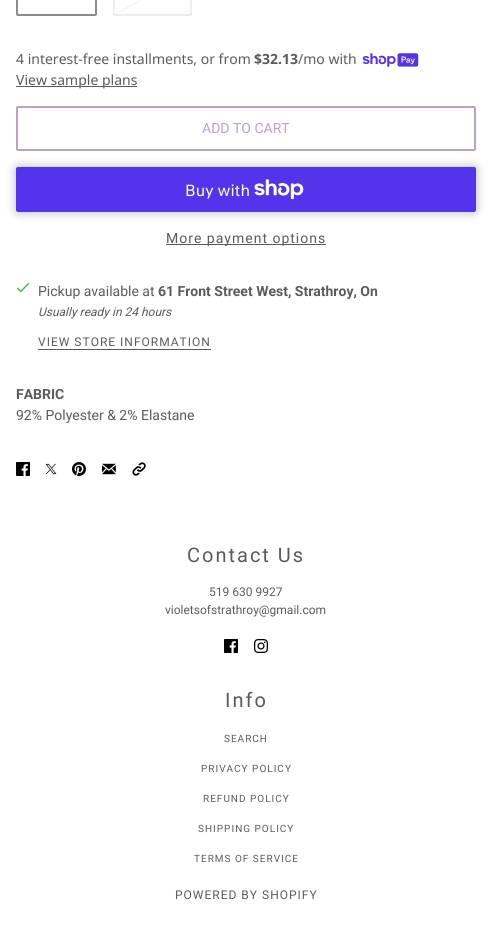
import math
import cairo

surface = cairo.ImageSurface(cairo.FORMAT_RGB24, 492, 938)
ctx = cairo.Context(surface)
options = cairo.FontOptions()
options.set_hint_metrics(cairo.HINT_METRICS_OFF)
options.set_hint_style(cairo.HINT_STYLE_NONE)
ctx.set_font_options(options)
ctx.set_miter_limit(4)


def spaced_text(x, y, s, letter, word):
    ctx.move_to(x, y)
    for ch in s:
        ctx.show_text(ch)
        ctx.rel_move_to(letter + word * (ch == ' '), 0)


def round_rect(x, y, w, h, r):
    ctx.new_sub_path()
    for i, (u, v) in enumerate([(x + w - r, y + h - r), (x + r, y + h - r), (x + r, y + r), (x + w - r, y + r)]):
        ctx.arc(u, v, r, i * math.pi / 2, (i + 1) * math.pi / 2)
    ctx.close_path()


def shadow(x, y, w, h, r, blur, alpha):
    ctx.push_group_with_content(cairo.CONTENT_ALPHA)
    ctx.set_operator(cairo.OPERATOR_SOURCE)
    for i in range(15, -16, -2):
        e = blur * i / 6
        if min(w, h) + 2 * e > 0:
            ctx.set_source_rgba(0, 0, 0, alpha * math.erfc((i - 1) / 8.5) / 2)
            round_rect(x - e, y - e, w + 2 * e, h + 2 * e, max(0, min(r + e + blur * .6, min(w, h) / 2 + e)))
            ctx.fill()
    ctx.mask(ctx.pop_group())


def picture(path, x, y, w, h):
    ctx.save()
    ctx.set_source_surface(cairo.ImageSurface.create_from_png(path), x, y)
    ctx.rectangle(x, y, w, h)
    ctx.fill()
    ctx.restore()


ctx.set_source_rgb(1, 1, 1)
ctx.paint()
round_rect(17, -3, 79, 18, 1)
ctx.set_source_rgb(0.541, 0.545, 0.553)
ctx.stroke()
gradient = cairo.LinearGradient(170, 25, 135, -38)
gradient.add_color_stop_rgba(0.49, 1, 1, 1, 1)
gradient.add_color_stop_rgba(0.5, 0.937, 0.937, 0.937, 1)
gradient.add_color_stop_rgba(0.51, 1, 1, 1, 1)
ctx.set_source(gradient)
ctx.rectangle(115, 0, 26, 14)
ctx.fill()
gradient = cairo.LinearGradient(245, 25, 210, -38)
gradient.add_color_stop_rgba(0.49, 1, 1, 1, 1)
gradient.add_color_stop_rgba(0.5, 0.937, 0.937, 0.937, 1)
gradient.add_color_stop_rgba(0.51, 1, 1, 1, 1)
ctx.set_source(gradient)
ctx.rectangle(190, 13, 2, 1)
ctx.fill()
gradient = cairo.LinearGradient(95, 66, 60, 2.9)
gradient.add_color_stop_rgba(0.49, 1, 1, 1, 1)
gradient.add_color_stop_rgba(0.5, 0.937, 0.937, 0.937, 1)
gradient.add_color_stop_rgba(0.51, 1, 1, 1, 1)
ctx.set_source(gradient)
ctx.new_path()
ctx.move_to(113, 14)
ctx.line_to(115, 14)
ctx.line_to(115, 16)
ctx.curve_to(114, 16, 113, 15, 113, 14)
ctx.close_path()
ctx.fill()
gradient = cairo.LinearGradient(170, 66, 135, 2.9)
gradient.add_color_stop_rgba(0.49, 1, 1, 1, 1)
gradient.add_color_stop_rgba(0.5, 0.937, 0.937, 0.937, 1)
gradient.add_color_stop_rgba(0.51, 1, 1, 1, 1)
ctx.set_source(gradient)
ctx.rectangle(185, 14, 5, 2)
ctx.fill()
round_rect(114, -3, 77, 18, 1)
ctx.set_source_rgba(0.353, 0.357, 0.361, 0.1)
ctx.stroke()
ctx.select_font_face("Noto Sans")
ctx.set_font_size(14)
ctx.set_source_rgb(0.353, 0.357, 0.361)
ctx.move_to(16, 64)
ctx.show_text("4 interest-free installments, or from")
ctx.select_font_face("Noto Sans", cairo.FONT_SLANT_NORMAL, cairo.FONT_WEIGHT_BOLD)
ctx.move_to(254, 64)
ctx.show_text("$32.13")
ctx.select_font_face("Noto Sans")
ctx.move_to(298, 64)
ctx.show_text("/mo with")
picture("img1.png", 362, 53, 57, 14)
ctx.rectangle(16, 86, 121, 1)
ctx.fill()
ctx.move_to(16, 85)
ctx.show_text("View sample plans")
round_rect(17, 107, 458, 43, 1)
ctx.set_source_rgb(0.718, 0.631, 0.804)
ctx.stroke()
ctx.select_font_face("Roboto")
ctx.move_to(202, 133)
ctx.show_text("ADD TO CART")
ctx.set_source_rgb(0, 0, 0)
shadow(16, 167, 460, 45, 2, 5, 0.3)
ctx.set_source_rgb(0.329, 0.2, 0.922)
round_rect(16, 167, 460, 45, 2)
ctx.fill()
ctx.select_font_face("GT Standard")
ctx.set_font_size(16)
ctx.set_source_rgb(1, 1, 1)
ctx.move_to(185, 196)
ctx.show_text("Buy with")
picture("img2.png", 254, 179, 50, 20)
ctx.set_source_rgb(0.353, 0.357, 0.361)
ctx.rectangle(166, 244, 160, 1)
ctx.fill()
ctx.select_font_face("Roboto")
ctx.set_font_size(14)
spaced_text(166, 243, "More payment options", 1, 0)
picture("img3.png", 16, 283, 13, 10)
ctx.move_to(38, 296)
ctx.show_text("Pickup available at")
ctx.select_font_face("Roboto", cairo.FONT_SLANT_NORMAL, cairo.FONT_WEIGHT_BOLD)
ctx.move_to(158, 296)
ctx.show_text("61 Front Street West, Strathroy, On")
ctx.select_font_face("Roboto", cairo.FONT_SLANT_ITALIC)
ctx.set_font_size(12)
ctx.move_to(38, 316)
ctx.show_text("Usually ready in 24 hours")
ctx.select_font_face("Roboto")
spaced_text(38, 346, "VIEW STORE INFORMATION", 1, 0)
ctx.rectangle(38, 349, 173, 1)
ctx.fill()
ctx.select_font_face("Roboto", cairo.FONT_SLANT_NORMAL, cairo.FONT_WEIGHT_BOLD)
ctx.set_font_size(14)
ctx.move_to(16, 399)
ctx.show_text("FABRIC")
ctx.select_font_face("Roboto")
ctx.move_to(16, 420)
ctx.show_text("92% Polyester & 2% Elastane")
picture("img4.png", 16, 462, 14, 14)
picture("img5.png", 45, 463, 12, 12)
picture("img6.png", 72, 462, 14, 14)
picture("img7.png", 102, 463, 14, 12)
picture("img8.png", 132, 462, 14, 14)
ctx.set_font_size(20)
spaced_text(187, 562, "Contact Us", 2, 0)
ctx.set_font_size(12)
ctx.move_to(209, 596)
ctx.show_text("519 630 9927")
ctx.move_to(165, 614)
ctx.show_text("violetsofstrathroy@gmail.com")
picture("img4.png", 224, 639, 14, 14)
picture("img9.png", 254, 639, 14, 14)
ctx.set_font_size(20)
spaced_text(225, 707, "Info", 2, 0)
ctx.set_font_size(10)
spaced_text(224, 742, "SEARCH", 1, 0)
spaced_text(201, 772, "PRIVACY POLICY", 1, 0)
spaced_text(203, 802, "REFUND POLICY", 1, 0)
spaced_text(198, 832, "SHIPPING POLICY", 1, 0)
spaced_text(194, 862, "TERMS OF SERVICE", 1, 0)
ctx.set_font_size(12)
spaced_text(175, 899, "POWERED BY SHOPIFY", 1, 0)
surface.write_to_png("page.png")
